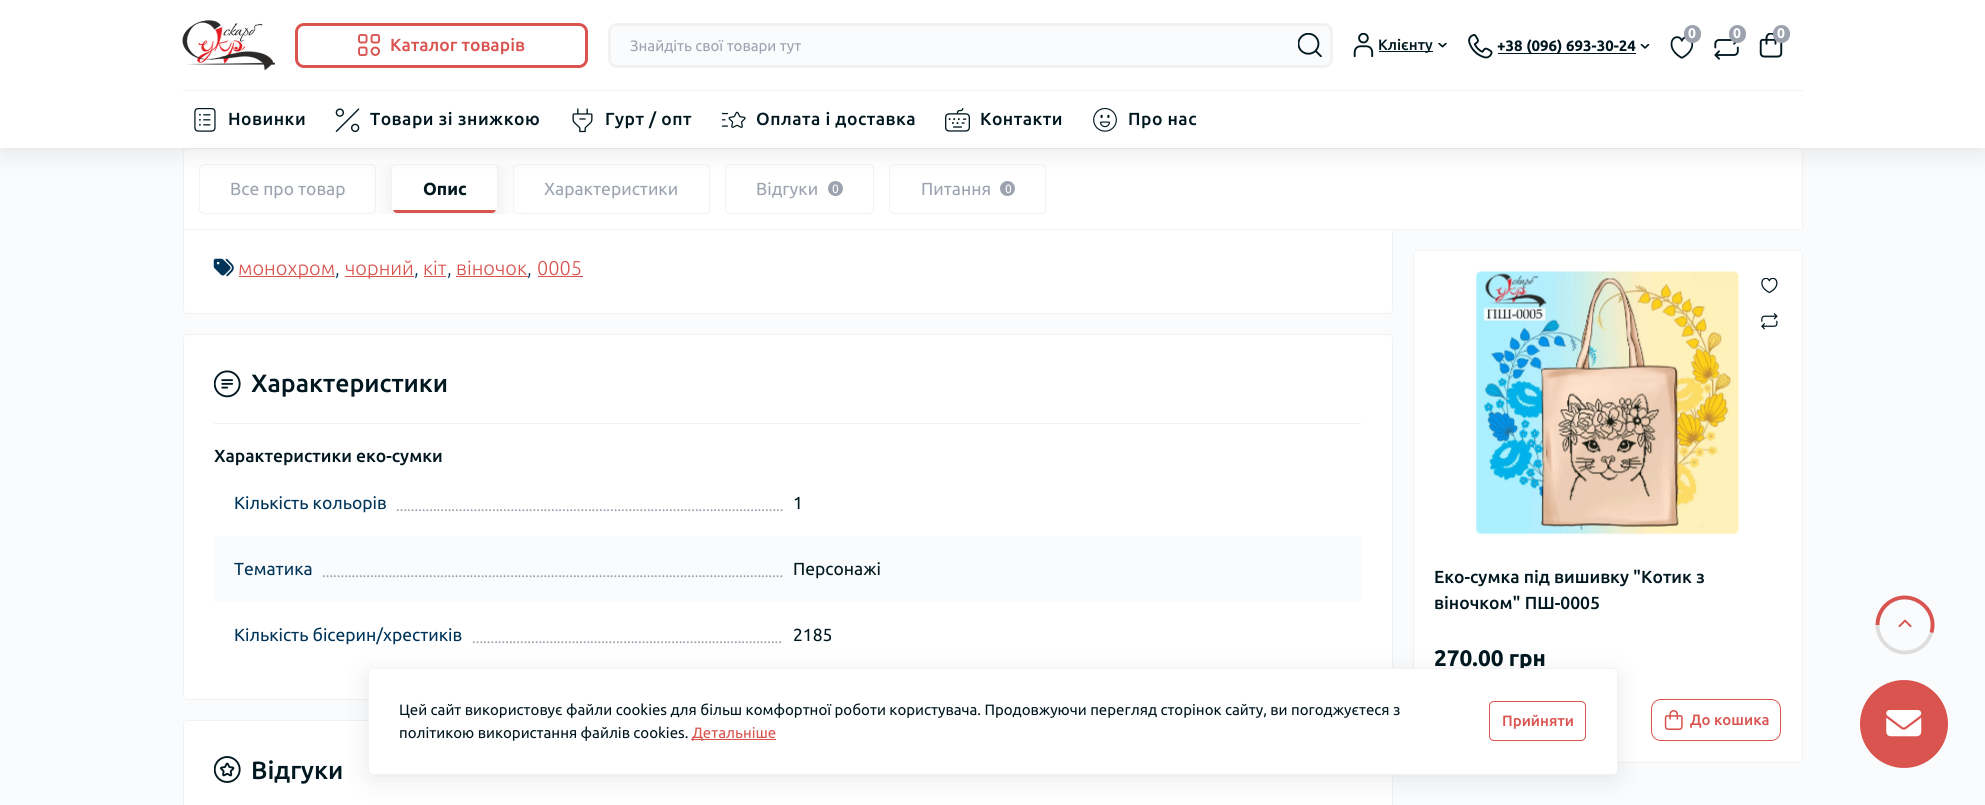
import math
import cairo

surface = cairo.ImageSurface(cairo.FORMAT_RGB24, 1985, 805)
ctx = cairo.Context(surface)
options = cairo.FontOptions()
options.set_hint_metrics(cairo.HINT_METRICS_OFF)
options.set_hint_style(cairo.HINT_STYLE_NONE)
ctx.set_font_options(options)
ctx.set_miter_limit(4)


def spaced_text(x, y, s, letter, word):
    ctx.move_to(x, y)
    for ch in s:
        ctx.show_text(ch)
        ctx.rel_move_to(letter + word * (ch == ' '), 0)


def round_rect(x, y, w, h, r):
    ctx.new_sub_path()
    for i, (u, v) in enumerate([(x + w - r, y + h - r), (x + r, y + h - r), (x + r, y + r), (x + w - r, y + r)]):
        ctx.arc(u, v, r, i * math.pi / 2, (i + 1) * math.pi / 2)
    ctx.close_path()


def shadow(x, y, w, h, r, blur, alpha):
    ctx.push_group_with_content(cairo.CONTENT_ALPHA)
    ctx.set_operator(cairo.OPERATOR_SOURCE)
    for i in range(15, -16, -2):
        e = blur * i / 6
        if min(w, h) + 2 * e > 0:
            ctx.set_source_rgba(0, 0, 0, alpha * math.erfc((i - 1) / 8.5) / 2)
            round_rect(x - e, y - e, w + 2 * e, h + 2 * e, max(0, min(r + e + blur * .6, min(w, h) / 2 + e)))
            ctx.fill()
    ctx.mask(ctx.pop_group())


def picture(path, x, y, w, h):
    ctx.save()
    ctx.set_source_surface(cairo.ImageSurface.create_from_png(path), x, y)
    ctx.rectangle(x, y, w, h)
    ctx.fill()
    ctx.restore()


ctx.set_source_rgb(0.973, 0.984, 0.992)
ctx.paint()
ctx.set_source_rgb(1, 1, 1)
round_rect(183.5, -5.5, 1209, 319, 4.5)
ctx.fill_preserve()
ctx.set_source_rgb(0.949, 0.949, 0.949)
ctx.set_line_width(1)
ctx.stroke()
ctx.set_source_rgb(1, 1, 1)
ctx.new_path()
ctx.move_to(188, 148.5)
ctx.line_to(1798, 148.5)
ctx.curve_to(1800.5, 148.5, 1802.5, 150.5, 1802.5, 153)
ctx.line_to(1802.5, 229.5)
ctx.line_to(183.5, 229.5)
ctx.line_to(183.5, 153)
ctx.curve_to(183.5, 150.5, 185.5, 148.5, 188, 148.5)
ctx.close_path()
ctx.fill_preserve()
ctx.set_source_rgb(0.949, 0.949, 0.949)
ctx.stroke()
round_rect(199.5, 164.5, 176, 49, 4.5)
ctx.stroke()
ctx.save()
ctx.rectangle(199, 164, 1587, 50)
ctx.clip()
ctx.set_source_rgb(0.145, 0.149, 0.153)
shadow(391, 169, 107, 50, 5, 12.5, 0.1)
ctx.restore()
ctx.set_source_rgb(1, 1, 1)
round_rect(391.5, 164.5, 106, 49, 4.5)
ctx.fill_preserve()
ctx.set_source_rgb(0.949, 0.949, 0.949)
ctx.stroke()
round_rect(513.5, 164.5, 196, 49, 4.5)
ctx.stroke()
round_rect(725.5, 164.5, 148, 49, 4.5)
ctx.stroke()
ctx.set_source_rgb(0.612, 0.639, 0.686)
ctx.arc(835.5, 188.5, 7.5, 0, 2 * math.pi)
ctx.fill()
round_rect(889.5, 164.5, 156, 49, 4.5)
ctx.set_source_rgb(0.949, 0.949, 0.949)
ctx.stroke()
ctx.set_source_rgb(0.612, 0.639, 0.686)
ctx.arc(1007.5, 188.5, 7.5, 0, 2 * math.pi)
ctx.fill()
ctx.set_source_rgb(0.145, 0.149, 0.153)
shadow(0, 5, 1985, 148, 0, 12.5, 0.1)
ctx.set_source_rgb(1, 1, 1)
ctx.rectangle(0, 0, 1985, 148)
ctx.fill()
picture("img1.png", 182, 20, 93, 50)
round_rect(296.5, 24.5, 290, 42, 7.5)
ctx.set_source_rgb(0.851, 0.325, 0.31)
ctx.set_line_width(3)
ctx.stroke()
picture("img2.png", 358, 34, 22, 22)
ctx.select_font_face("Ubuntu Medium")
ctx.set_font_size(17.5)
ctx.move_to(390, 51)
ctx.show_text("Каталог товарів")
picture("img3.png", 1670, 36, 24, 23)
ctx.set_source_rgb(0.612, 0.639, 0.686)
round_rect(1684, 25, 17, 18, 8.5)
ctx.fill()
ctx.select_font_face("Ubuntu", cairo.FONT_SLANT_NORMAL, cairo.FONT_WEIGHT_BOLD)
ctx.set_font_size(14)
ctx.set_source_rgb(1, 1, 1)
ctx.move_to(1688, 38)
ctx.show_text("0")
picture("img4.png", 1714, 39, 25, 21)
ctx.set_source_rgb(0.612, 0.639, 0.686)
round_rect(1729, 25, 17, 18, 8.5)
ctx.fill()
ctx.set_source_rgb(1, 1, 1)
ctx.move_to(1733, 38)
ctx.show_text("0")
picture("img5.png", 1759, 33, 24, 25)
ctx.set_source_rgb(0.612, 0.639, 0.686)
round_rect(1773, 25, 17, 18, 8.5)
ctx.fill()
ctx.set_source_rgb(1, 1, 1)
ctx.move_to(1777, 38)
ctx.show_text("0")
ctx.set_source_rgb(0.973, 0.984, 0.992)
round_rect(609.5, 24.5, 722, 42, 7.5)
ctx.fill_preserve()
ctx.set_source_rgb(0.949, 0.949, 0.949)
ctx.stroke()
ctx.select_font_face("Ubuntu")
ctx.set_font_size(15)
ctx.set_source_rgb(0.612, 0.639, 0.686)
ctx.move_to(630, 51)
ctx.show_text("Знайдіть свої товари тут")
picture("img6.png", 1298, 33, 24, 25)
picture("img7.png", 1353, 33, 21, 25)
ctx.set_source_rgb(0, 0.09, 0.122)
ctx.rectangle(1379, 51, 54, 1)
ctx.fill()
ctx.select_font_face("Ubuntu Medium")
ctx.move_to(1378, 50)
ctx.show_text("Клієнту")
picture("img8.png", 1438, 43, 9, 5)
picture("img9.png", 1468, 34, 25, 25)
ctx.rectangle(1498, 53, 138, 1)
ctx.fill()
ctx.select_font_face("Ubuntu", cairo.FONT_SLANT_NORMAL, cairo.FONT_WEIGHT_BOLD)
ctx.move_to(1497, 51)
ctx.show_text("+38 (096) 693-30-24")
picture("img10.png", 1640, 44, 10, 5)
ctx.set_source_rgb(0.949, 0.949, 0.949)
ctx.rectangle(183, 90, 1620, 1)
ctx.fill()
picture("img11.png", 194, 108, 22, 24)
ctx.select_font_face("Ubuntu Medium")
ctx.set_font_size(17.5)
ctx.set_source_rgb(0, 0.09, 0.122)
spaced_text(228, 125, "Новинки", 0.5, 0)
picture("img12.png", 335, 108, 25, 25)
spaced_text(370, 125, "Товари зі знижкою", 0.5, 0)
picture("img13.png", 572, 108, 21, 25)
spaced_text(605, 125, "Гурт / опт", 0.5, 0)
picture("img14.png", 721, 111, 25, 17)
spaced_text(756, 125, "Оплата і доставка", 0.5, 0)
picture("img15.png", 945, 108, 25, 24)
spaced_text(980, 125, "Контакти", 0.5, 0)
picture("img16.png", 1093, 108, 24, 24)
spaced_text(1128, 125, "Про нас", 0.5, 0)
ctx.select_font_face("Ubuntu")
ctx.set_source_rgb(0.612, 0.639, 0.686)
ctx.move_to(230, 195)
ctx.show_text("Все про товар")
ctx.select_font_face("Ubuntu", cairo.FONT_SLANT_NORMAL, cairo.FONT_WEIGHT_BOLD)
ctx.set_source_rgb(0, 0.09, 0.122)
ctx.move_to(423, 195)
ctx.show_text("Опис")
ctx.save()
round_rect(393, 165, 103, 48, 4)
ctx.clip()
ctx.set_source_rgb(0.851, 0.325, 0.31)
ctx.rectangle(393, 210, 103, 3)
ctx.fill()
ctx.restore()
ctx.select_font_face("Ubuntu")
ctx.set_source_rgb(0.612, 0.639, 0.686)
ctx.move_to(544, 195)
ctx.show_text("Характеристики")
ctx.move_to(756, 195)
ctx.show_text("Відгуки")
ctx.set_font_size(12)
ctx.set_source_rgb(1, 1, 1)
ctx.move_to(832, 193)
ctx.show_text("0")
ctx.set_font_size(17.5)
ctx.set_source_rgb(0.612, 0.639, 0.686)
ctx.move_to(921, 195)
ctx.show_text("Питання")
ctx.set_font_size(12)
ctx.set_source_rgb(1, 1, 1)
ctx.move_to(1005, 193)
ctx.show_text("0")
picture("img17.png", 213, 258, 21, 19)
ctx.set_source_rgb(0.851, 0.325, 0.31)
ctx.rectangle(239, 276, 96, 1)
ctx.fill()
ctx.select_font_face("Ubuntu Light")
ctx.set_font_size(20)
ctx.move_to(238, 275)
ctx.show_text("монохром")
ctx.set_source_rgb(0, 0.204, 0.349)
ctx.move_to(335, 275)
ctx.show_text(",")
ctx.set_source_rgb(0.851, 0.325, 0.31)
ctx.rectangle(345, 276, 69, 1)
ctx.fill()
ctx.move_to(345, 275)
ctx.show_text("чорний")
ctx.set_source_rgb(0, 0.204, 0.349)
ctx.move_to(414, 275)
ctx.show_text(",")
ctx.set_source_rgb(0.851, 0.325, 0.31)
ctx.move_to(423, 275)
ctx.show_text("кіт")
ctx.rectangle(424, 276, 22, 1)
ctx.fill()
ctx.set_source_rgb(0, 0.204, 0.349)
ctx.move_to(447, 275)
ctx.show_text(",")
ctx.set_source_rgb(0.851, 0.325, 0.31)
ctx.move_to(456, 275)
ctx.show_text("віночок")
ctx.rectangle(456, 276, 72, 1)
ctx.fill()
ctx.set_source_rgb(0, 0.204, 0.349)
ctx.move_to(527, 275)
ctx.show_text(",")
ctx.set_source_rgb(0.851, 0.325, 0.31)
ctx.move_to(537, 275)
ctx.show_text("0005")
ctx.rectangle(538, 276, 45, 1)
ctx.fill()
ctx.set_source_rgb(1, 1, 1)
round_rect(183.5, 334.5, 1209, 365, 4.5)
ctx.fill_preserve()
ctx.set_source_rgb(0.949, 0.949, 0.949)
ctx.set_line_width(1)
ctx.stroke()
ctx.rectangle(214, 423, 1147, 1)
ctx.fill()
picture("img18.png", 214, 370, 27, 28)
ctx.select_font_face("Ubuntu Medium")
ctx.set_font_size(25)
ctx.set_source_rgb(0, 0.09, 0.122)
ctx.move_to(251, 392)
ctx.show_text("Характеристики")
ctx.set_font_size(17.5)
ctx.move_to(214, 462)
ctx.show_text("Характеристики еко-сумки")
ctx.select_font_face("Ubuntu")
ctx.set_source_rgb(0, 0.204, 0.349)
ctx.move_to(234, 509)
ctx.show_text("Кількість кольорів")
ctx.set_font_size(15)
ctx.set_source_rgb(0.612, 0.639, 0.686)
ctx.move_to(396, 511)
ctx.show_text(".........................................................................................................")
ctx.set_font_size(17.5)
ctx.set_source_rgb(0, 0.09, 0.122)
ctx.move_to(793, 509)
ctx.show_text("1")
ctx.set_source_rgb(0.973, 0.984, 0.992)
round_rect(214, 536, 1147, 67, 2.5)
ctx.fill()
ctx.set_source_rgb(0, 0.204, 0.349)
ctx.move_to(234, 575)
ctx.show_text("Тематика")
ctx.set_font_size(15)
ctx.set_source_rgb(0.612, 0.639, 0.686)
ctx.move_to(322, 577)
ctx.show_text(".............................................................................................................................")
ctx.set_font_size(17.5)
ctx.set_source_rgb(0, 0.09, 0.122)
ctx.move_to(793, 575)
ctx.show_text("Персонажі")
ctx.set_source_rgb(0, 0.204, 0.349)
ctx.move_to(234, 641)
ctx.show_text("Кількість бісерин/хрестиків")
ctx.set_font_size(15)
ctx.set_source_rgb(0.612, 0.639, 0.686)
ctx.move_to(472, 643)
ctx.show_text("....................................................................................")
ctx.set_font_size(17.5)
ctx.set_source_rgb(0, 0.09, 0.122)
ctx.move_to(793, 641)
ctx.show_text("2185")
ctx.set_source_rgb(1, 1, 1)
round_rect(183.5, 720.5, 1209, 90, 4.5)
ctx.fill_preserve()
ctx.set_source_rgb(0.949, 0.949, 0.949)
ctx.stroke()
picture("img19.png", 214, 756, 27, 27)
ctx.select_font_face("Ubuntu Medium")
ctx.set_font_size(25)
ctx.set_source_rgb(0, 0.09, 0.122)
ctx.move_to(251, 779)
ctx.show_text("Відгуки")
ctx.set_source_rgb(1, 1, 1)
round_rect(1413.5, 250.5, 389, 512, 4.5)
ctx.fill_preserve()
ctx.set_source_rgb(0.949, 0.949, 0.949)
ctx.stroke()
picture("img20.png", 1476, 271, 264, 264)
picture("img21.png", 1761, 278, 17, 16)
picture("img22.png", 1761, 313, 17, 17)
ctx.set_font_size(17.5)
ctx.set_source_rgb(0, 0.09, 0.122)
ctx.move_to(1434, 583)
ctx.show_text("Еко-сумка під вишивку \"Котик з")
ctx.move_to(1434, 609)
ctx.show_text("віночком\" ПШ-0005")
ctx.select_font_face("Ubuntu", cairo.FONT_SLANT_NORMAL, cairo.FONT_WEIGHT_BOLD)
ctx.set_font_size(22.5)
ctx.move_to(1434, 666)
ctx.show_text("270.00 грн")
round_rect(1651.5, 699.5, 129, 41, 9.5)
ctx.set_source_rgb(0.851, 0.325, 0.31)
ctx.stroke()
picture("img23.png", 1664, 710, 19, 20)
ctx.select_font_face("Ubuntu Medium")
ctx.set_font_size(15)
ctx.move_to(1690, 725)
ctx.show_text("До кошика")
picture("img24.png", 1898, 619, 14, 9)
ctx.new_path()
ctx.move_to(1877.5, 625)
ctx.curve_to(1877.5, 610, 1890, 597.5, 1905, 597.5)
ctx.curve_to(1920, 597.5, 1932.5, 610, 1932.5, 625)
ctx.curve_to(1932.5, 640, 1920, 652.5, 1905, 652.5)
ctx.curve_to(1890, 652.5, 1877.5, 640, 1877.5, 625)
ctx.close_path()
ctx.set_source_rgb(0.867, 0.867, 0.867)
ctx.set_line_width(3.8)
ctx.stroke()
ctx.new_path()
ctx.move_to(1877.5, 625)
ctx.curve_to(1877.5, 617.5, 1880.5, 610.5, 1885.5, 605.5)
ctx.curve_to(1906, 585.5, 1939, 606, 1931.5, 632.5)
ctx.set_source_rgb(0.851, 0.325, 0.31)
ctx.stroke()
ctx.set_source_rgb(0.145, 0.149, 0.153)
shadow(368, 673, 1250, 107, 5, 12.5, 0.1)
ctx.set_source_rgb(1, 1, 1)
round_rect(368.5, 668.5, 1249, 106, 4.5)
ctx.fill_preserve()
ctx.set_source_rgb(0.949, 0.949, 0.949)
ctx.set_line_width(1)
ctx.stroke()
ctx.select_font_face("Ubuntu")
ctx.set_source_rgb(0, 0.09, 0.122)
ctx.move_to(399, 715)
ctx.show_text("Цей сайт використовує файли cookies для більш комфортної роботи користувача. Продовжуючи перегляд сторінок сайту, ви погоджуєтеся з")
ctx.move_to(399, 738)
ctx.show_text("політикою використання файлів cookies.")
ctx.set_source_rgb(0.851, 0.325, 0.31)
ctx.rectangle(691, 739, 85, 1)
ctx.fill()
ctx.move_to(692, 738)
ctx.show_text("Детальніше")
round_rect(1489.5, 701.5, 96, 39, 4.5)
ctx.stroke()
ctx.select_font_face("Ubuntu Medium")
ctx.move_to(1502, 726)
ctx.show_text("Прийняти")
ctx.new_path()
ctx.arc(1904, 724, 44, 0, 2 * math.pi)
ctx.fill()
picture("img25.png", 1886, 710, 36, 27)
surface.write_to_png("page.png")
